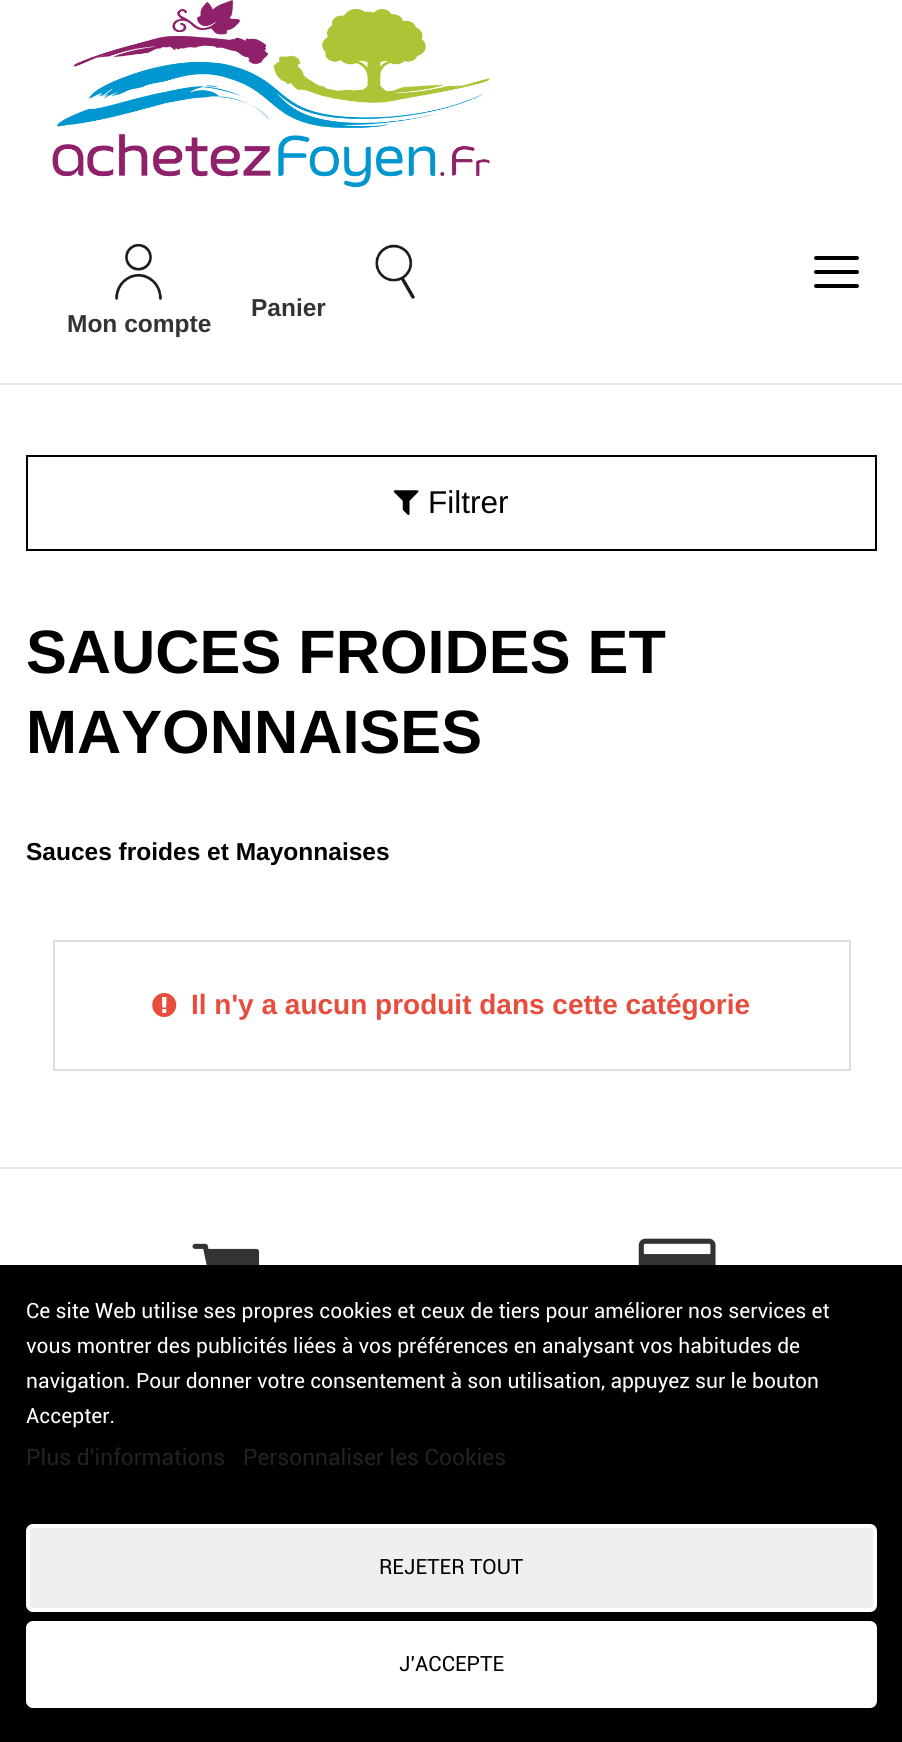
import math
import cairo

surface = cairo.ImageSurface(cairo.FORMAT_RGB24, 902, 1742)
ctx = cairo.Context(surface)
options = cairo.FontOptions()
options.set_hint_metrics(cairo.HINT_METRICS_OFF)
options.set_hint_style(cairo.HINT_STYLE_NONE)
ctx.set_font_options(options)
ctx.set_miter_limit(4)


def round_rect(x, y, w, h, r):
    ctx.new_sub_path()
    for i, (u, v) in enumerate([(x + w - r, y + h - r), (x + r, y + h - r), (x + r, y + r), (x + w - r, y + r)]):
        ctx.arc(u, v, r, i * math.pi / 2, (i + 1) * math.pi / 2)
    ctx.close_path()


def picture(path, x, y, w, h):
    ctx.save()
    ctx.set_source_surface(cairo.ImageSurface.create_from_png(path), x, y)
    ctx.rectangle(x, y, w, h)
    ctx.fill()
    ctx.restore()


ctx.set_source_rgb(1, 1, 1)
ctx.paint()
ctx.set_source_rgb(0.906, 0.906, 0.906)
ctx.rectangle(0, 383, 902, 2)
ctx.fill()
ctx.set_source_rgb(0, 0, 0)
round_rect(814, 256, 45, 4, 2)
ctx.fill()
round_rect(814, 270, 45, 4, 2)
ctx.fill()
round_rect(814, 284, 45, 4, 2)
ctx.fill()
picture("img1.png", 52, 0, 438, 188)
picture("img2.png", 375, 244, 40, 55)
ctx.select_font_face("Liberation Sans", cairo.FONT_SLANT_NORMAL, cairo.FONT_WEIGHT_BOLD)
ctx.set_font_size(24.5)
ctx.set_source_rgb(0.2, 0.2, 0.2)
ctx.move_to(251, 316)
ctx.show_text("Panier")
picture("img3.png", 115, 244, 47, 56)
ctx.move_to(67, 332)
ctx.show_text("Mon compte")
ctx.rectangle(27, 456, 849, 94)
ctx.set_source_rgb(0, 0, 0)
ctx.stroke()
picture("img4.png", 393, 490, 26, 25)
ctx.select_font_face("Liberation Sans")
ctx.set_font_size(31.5)
ctx.move_to(428, 513)
ctx.show_text("Filtrer")
ctx.select_font_face("Liberation Sans", cairo.FONT_SLANT_NORMAL, cairo.FONT_WEIGHT_BOLD)
ctx.set_font_size(61.25)
ctx.move_to(26, 673)
ctx.show_text("SAUCES FROIDES ET")
ctx.move_to(26, 753)
ctx.show_text("MAYONNAISES")
ctx.set_font_size(24.5)
ctx.move_to(26, 860)
ctx.show_text("Sauces froides et Mayonnaises")
ctx.rectangle(54, 941, 796, 129)
ctx.set_source_rgb(0.867, 0.867, 0.867)
ctx.stroke()
picture("img5.png", 152, 993, 25, 24)
ctx.set_font_size(28)
ctx.set_source_rgb(0.906, 0.298, 0.235)
ctx.move_to(191, 1014)
ctx.show_text("Il n'y a aucun produit dans cette catégorie")
ctx.set_source_rgb(0.906, 0.906, 0.906)
ctx.rectangle(0, 1167, 902, 2)
ctx.fill()
picture("img6.png", 192, 1243, 68, 22)
picture("img7.png", 638, 1238, 78, 27)
ctx.set_source_rgb(0, 0, 0)
ctx.rectangle(0, 1265, 902, 477)
ctx.fill()
ctx.select_font_face("Roboto")
ctx.set_font_size(21)
ctx.set_source_rgb(1, 1, 1)
ctx.move_to(26, 1318)
ctx.show_text("Ce site Web utilise ses propres cookies et ceux de tiers pour améliorer nos services et")
ctx.move_to(26, 1353)
ctx.show_text("vous montrer des publicités liées à vos préférences en analysant vos habitudes de")
ctx.move_to(26, 1388)
ctx.show_text("navigation. Pour donner votre consentement à son utilisation, appuyez sur le bouton")
ctx.move_to(26, 1423)
ctx.show_text("Accepter.")
ctx.set_font_size(22.75)
ctx.set_source_rgb(0.133, 0.133, 0.133)
ctx.move_to(26, 1465)
ctx.show_text("Plus d'informations")
ctx.move_to(243, 1465)
ctx.show_text("Personnaliser les Cookies")
ctx.set_source_rgb(0.937, 0.937, 0.937)
round_rect(28, 1526, 847, 84, 5)
ctx.fill_preserve()
ctx.set_source_rgb(1, 1, 1)
ctx.set_line_width(4)
ctx.stroke()
ctx.set_font_size(21)
ctx.set_source_rgb(0, 0, 0)
ctx.move_to(379, 1574)
ctx.show_text("REJETER TOUT")
ctx.set_source_rgb(1, 1, 1)
round_rect(28, 1623, 847, 83, 5)
ctx.fill_preserve()
ctx.stroke()
ctx.set_source_rgb(0, 0, 0)
ctx.move_to(399, 1671)
ctx.show_text("J'ACCEPTE")
surface.write_to_png("page.png")
